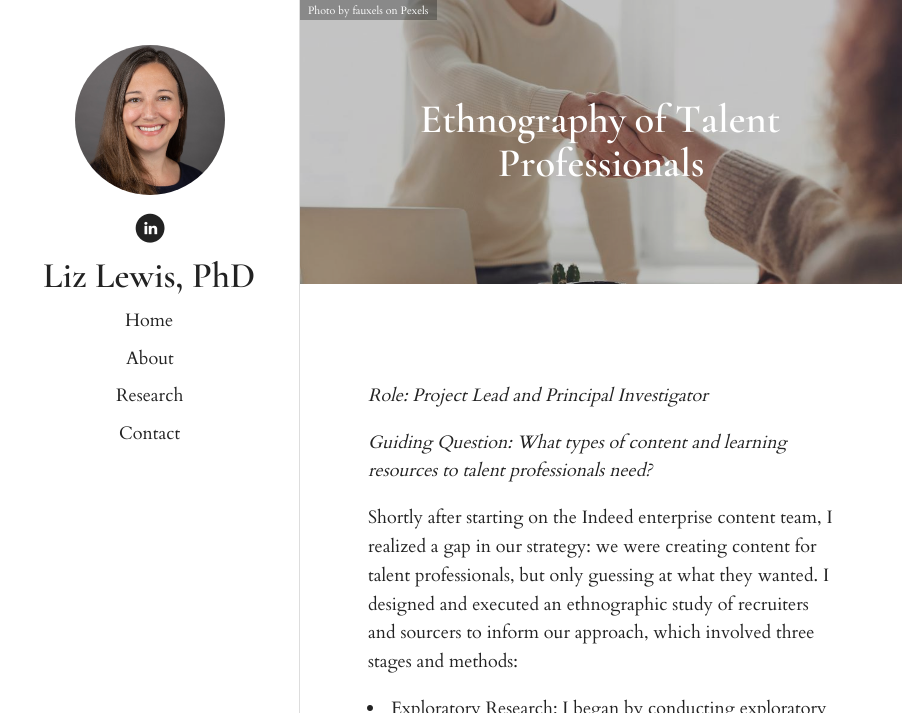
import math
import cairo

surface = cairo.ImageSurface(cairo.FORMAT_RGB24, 902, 713)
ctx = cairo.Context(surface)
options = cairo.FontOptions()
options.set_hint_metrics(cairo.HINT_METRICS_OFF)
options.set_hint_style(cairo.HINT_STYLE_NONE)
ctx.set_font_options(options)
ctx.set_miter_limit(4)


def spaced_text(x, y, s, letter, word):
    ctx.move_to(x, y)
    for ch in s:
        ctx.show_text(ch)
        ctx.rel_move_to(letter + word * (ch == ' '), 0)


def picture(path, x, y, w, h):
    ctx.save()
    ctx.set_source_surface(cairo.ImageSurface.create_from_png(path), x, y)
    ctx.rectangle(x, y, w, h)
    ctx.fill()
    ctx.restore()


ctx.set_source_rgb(1, 1, 1)
ctx.paint()
ctx.set_source_rgb(0.867, 0.867, 0.867)
ctx.rectangle(299, 0, 1, 713)
ctx.fill()
picture("img1.png", 75, 45, 150, 150)
picture("img2.png", 135, 213, 30, 30)
ctx.select_font_face("Cormorant Garamond SemiBold")
ctx.set_font_size(36)
ctx.set_source_rgb(0.133, 0.133, 0.133)
ctx.move_to(43, 287)
ctx.show_text("Liz Lewis, PhD")
ctx.select_font_face("Cardo")
ctx.set_font_size(18)
ctx.move_to(125, 326)
ctx.show_text("Home")
ctx.move_to(126, 364)
ctx.show_text("About")
ctx.move_to(116, 401)
ctx.show_text("Research")
ctx.move_to(119, 439)
ctx.show_text("Contact")
picture("img3.png", 300, 0, 602, 284)
ctx.set_source_rgba(0, 0, 0, 0.3)
ctx.rectangle(300, 0, 137, 20)
ctx.fill()
ctx.set_font_size(10.75)
ctx.set_source_rgb(1, 1, 1)
ctx.move_to(308, 14)
ctx.show_text("Photo by fauxels on Pexels")
ctx.select_font_face("Cormorant Garamond SemiBold")
ctx.set_font_size(40.5)
spaced_text(420, 132, "Ethnography of Talent", 0, -1)
ctx.move_to(498, 176)
ctx.show_text("Professionals")
ctx.select_font_face("Cardo", cairo.FONT_SLANT_ITALIC)
ctx.set_font_size(18)
ctx.set_source_rgb(0.133, 0.133, 0.133)
ctx.move_to(368, 401)
ctx.show_text("Role: Project Lead and Principal Investigator")
ctx.move_to(368, 448)
ctx.show_text("Guiding Question: What types of content and learning")
ctx.move_to(368, 476)
ctx.show_text("resources to talent professionals need?")
ctx.select_font_face("Cardo")
ctx.move_to(368, 523)
ctx.show_text("Shortly after starting on the Indeed enterprise content team, I")
ctx.move_to(368, 552)
ctx.show_text("realized a gap in our strategy: we were creating content for")
ctx.move_to(368, 581)
ctx.show_text("talent professionals, but only guessing at what they wanted. I")
ctx.move_to(368, 610)
ctx.show_text("designed and executed an ethnographic study of recruiters")
ctx.move_to(368, 638)
ctx.show_text("and sourcers to inform our approach, which involved three")
ctx.move_to(368, 667)
ctx.show_text("stages and methods:")
ctx.new_path()
ctx.arc(370, 708, 3, 0, 2 * math.pi)
ctx.fill()
ctx.move_to(391, 714)
ctx.show_text("Exploratory Research: I began by conducting exploratory")
surface.write_to_png("page.png")
